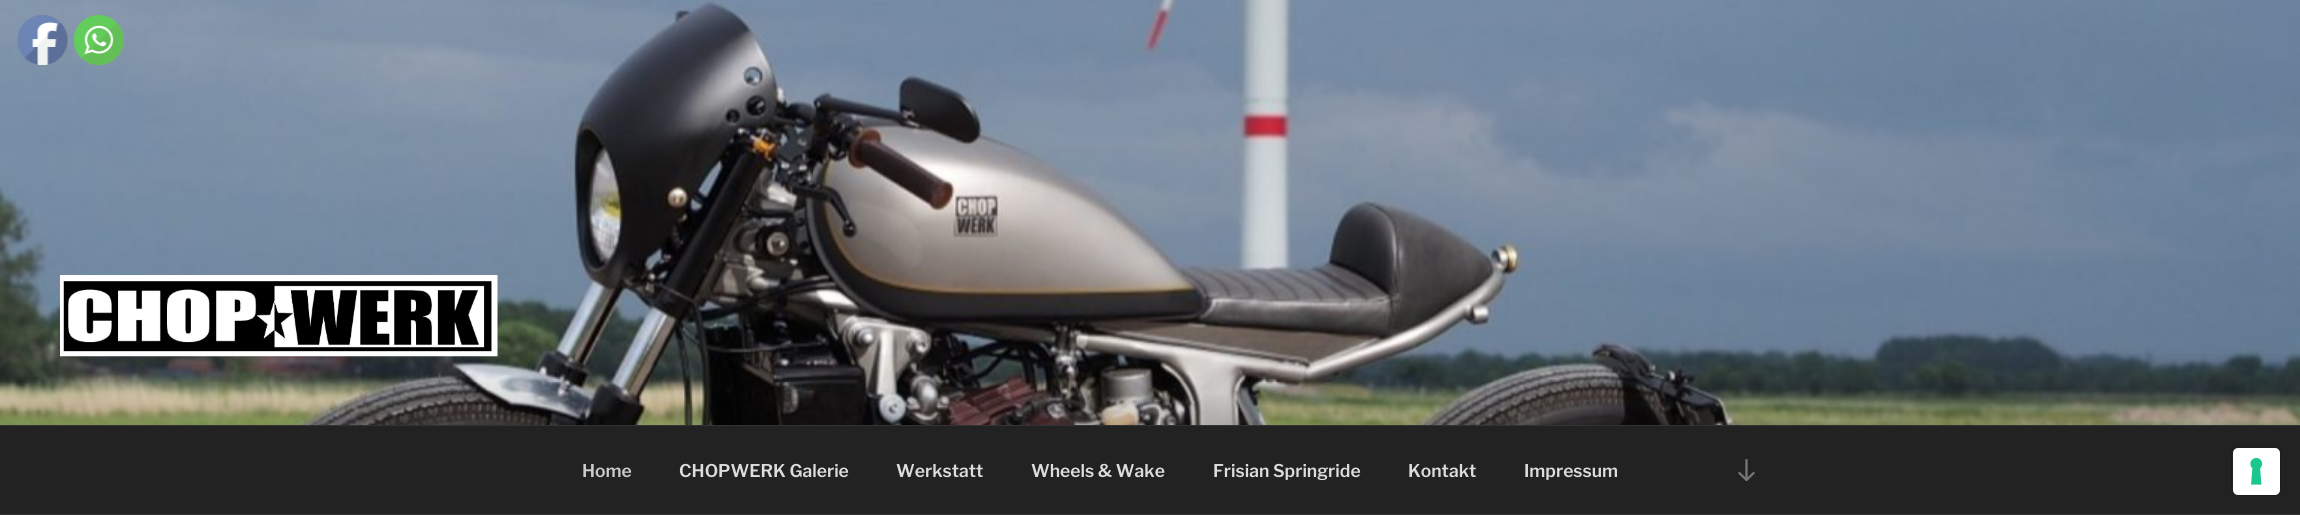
import math
import cairo

surface = cairo.ImageSurface(cairo.FORMAT_RGB24, 2300, 515)
ctx = cairo.Context(surface)
options = cairo.FontOptions()
options.set_hint_metrics(cairo.HINT_METRICS_OFF)
options.set_hint_style(cairo.HINT_STYLE_NONE)
ctx.set_font_options(options)
ctx.set_miter_limit(4)


def round_rect(x, y, w, h, r):
    ctx.new_sub_path()
    for i, (u, v) in enumerate([(x + w - r, y + h - r), (x + r, y + h - r), (x + r, y + r), (x + w - r, y + r)]):
        ctx.arc(u, v, r, i * math.pi / 2, (i + 1) * math.pi / 2)
    ctx.close_path()


def picture(path, x, y, w, h):
    ctx.save()
    ctx.set_source_surface(cairo.ImageSurface.create_from_png(path), x, y)
    ctx.rectangle(x, y, w, h)
    ctx.fill()
    ctx.restore()


ctx.set_source_rgb(1, 1, 1)
ctx.paint()
picture("img3.png", 0, 0, 2300, 425)
picture("img1.png", 17, 15, 51, 50)
picture("img2.png", 73, 15, 51, 50)
gradient = cairo.LinearGradient(1150, 345, 1150, 515)
gradient.add_color_stop_rgba(0, 0, 0, 0, 0)
gradient.add_color_stop_rgba(0.75, 0, 0, 0, 0.3)
gradient.add_color_stop_rgba(1, 0, 0, 0, 0.3)
ctx.set_source(gradient)
ctx.rectangle(0, 354, 2300, 71)
ctx.fill()
picture("img4.png", 60, 275, 438, 82)
ctx.set_source_rgb(0.133, 0.133, 0.133)
ctx.rectangle(0, 426, 2300, 88)
ctx.fill()
ctx.set_source_rgb(0.2, 0.2, 0.2)
ctx.rectangle(0, 425, 2300, 1)
ctx.fill()
ctx.rectangle(0, 514, 2300, 1)
ctx.fill()
ctx.select_font_face("Libre Franklin Thin")
ctx.set_font_size(17.5)
ctx.set_source_rgb(0.8, 0.8, 0.8)
ctx.move_to(582, 477)
ctx.show_text("Home")
ctx.set_source_rgb(0.867, 0.867, 0.867)
ctx.move_to(679, 477)
ctx.show_text("CHOPWERK Galerie")
ctx.move_to(896, 477)
ctx.show_text("Werkstatt")
ctx.move_to(1031, 477)
ctx.show_text("Wheels & Wake")
ctx.move_to(1213, 477)
ctx.show_text("Frisian Springride")
ctx.move_to(1408, 477)
ctx.show_text("Kontakt")
ctx.move_to(1524, 477)
ctx.show_text("Impressum")
picture("img5.png", 1738, 459, 17, 23)
round_rect(2231.5, 446.5, 49, 49, 5.5)
ctx.set_source_rgb(0.114, 0.114, 0.114)
ctx.set_line_width(1)
ctx.stroke()
ctx.set_source_rgb(1, 1, 1)
round_rect(2233, 448, 47, 47, 5)
ctx.fill()
picture("img6.png", 2250, 457, 13, 28)
surface.write_to_png("page.png")
